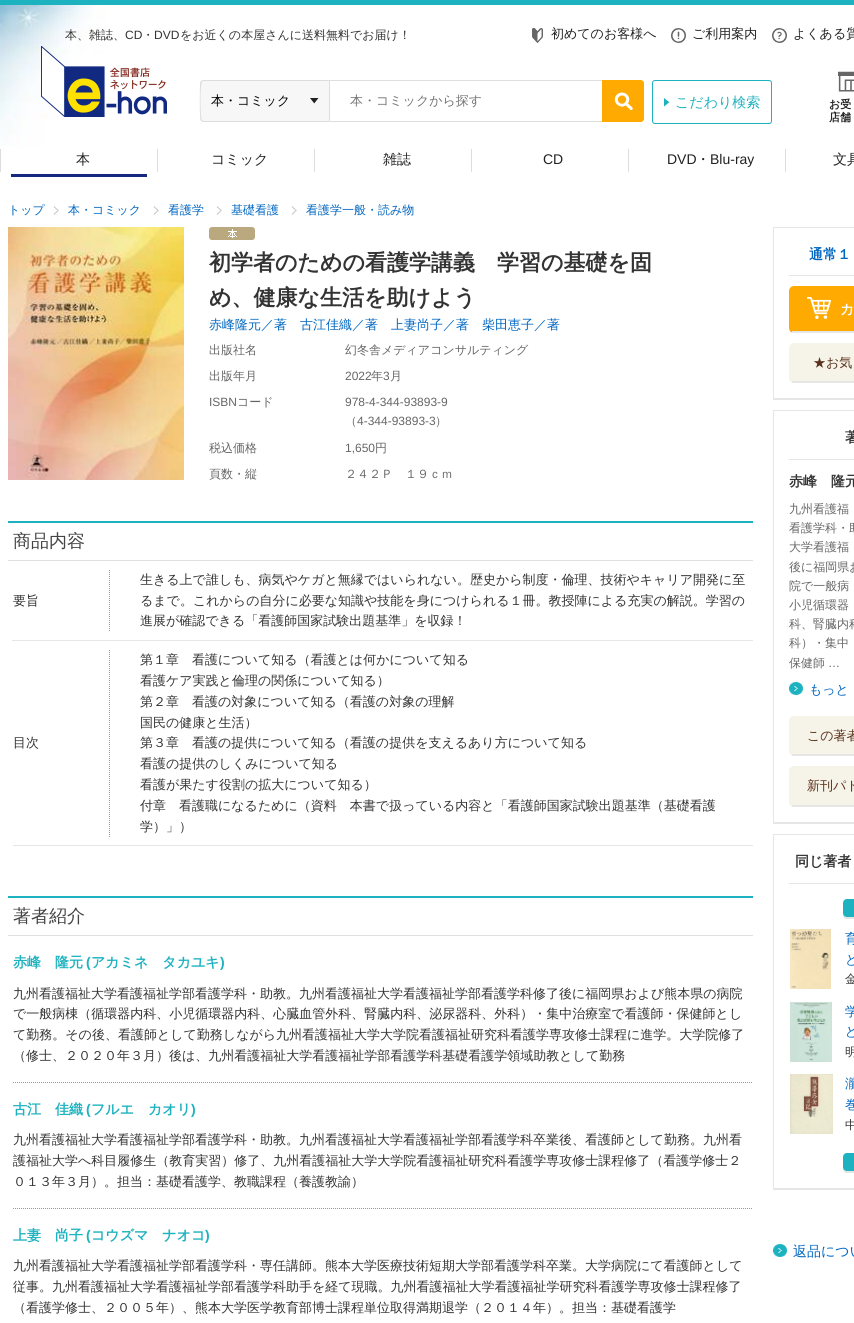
import math
import cairo

surface = cairo.ImageSurface(cairo.FORMAT_RGB24, 854, 1323)
ctx = cairo.Context(surface)
options = cairo.FontOptions()
options.set_hint_metrics(cairo.HINT_METRICS_OFF)
options.set_hint_style(cairo.HINT_STYLE_NONE)
ctx.set_font_options(options)
ctx.set_miter_limit(4)


def round_rect(x, y, w, h, r):
    ctx.new_sub_path()
    for i, (u, v) in enumerate([(x + w - r, y + h - r), (x + r, y + h - r), (x + r, y + r), (x + w - r, y + r)]):
        ctx.arc(u, v, r, i * math.pi / 2, (i + 1) * math.pi / 2)
    ctx.close_path()


def picture(path, x, y, w, h):
    ctx.save()
    ctx.set_source_surface(cairo.ImageSurface.create_from_png(path), x, y)
    ctx.rectangle(x, y, w, h)
    ctx.fill()
    ctx.restore()


ctx.set_source_rgb(1, 1, 1)
ctx.paint()
ctx.set_source_rgb(0.114, 0.698, 0.749)
ctx.rectangle(0, 0, 854, 5)
ctx.fill()
picture("img1.png", 0, 5, 105, 142)
ctx.select_font_face("WenQuanYi Zen Hei Medium")
ctx.set_font_size(12)
ctx.set_source_rgb(0.2, 0.2, 0.2)
ctx.move_to(65, 39)
ctx.show_text("本、雑誌、")
ctx.select_font_face("Liberation Sans")
ctx.move_to(125, 39)
ctx.show_text("CD")
ctx.select_font_face("WenQuanYi Zen Hei Medium")
ctx.move_to(142, 39)
ctx.show_text("・")
ctx.select_font_face("Liberation Sans")
ctx.move_to(154, 39)
ctx.show_text("DVD")
ctx.select_font_face("WenQuanYi Zen Hei Medium")
ctx.move_to(180, 39)
ctx.show_text("をお近くの本屋さんに送料無料でお届け！")
picture("img2.png", 41, 46, 126, 71)
picture("img3.png", 532, 28, 11, 15)
ctx.set_font_size(13)
ctx.set_source_rgb(0.129, 0.129, 0.129)
ctx.move_to(551, 38)
ctx.show_text("初めてのお客様へ")
picture("img4.png", 671, 28, 15, 15)
ctx.move_to(692, 38)
ctx.show_text("ご利用案内")
picture("img5.png", 772, 28, 15, 15)
ctx.move_to(793, 38)
ctx.show_text("よくある質")
ctx.set_source_rgb(0.965, 0.965, 0.965)
ctx.new_path()
ctx.move_to(203, 80)
ctx.line_to(330, 80)
ctx.line_to(330, 122)
ctx.line_to(203, 122)
ctx.curve_to(201.5, 122, 200, 120.5, 200, 119)
ctx.line_to(200, 83)
ctx.curve_to(200, 81.5, 201.5, 80, 203, 80)
ctx.close_path()
ctx.fill()
picture("img6.png", 310, 98, 9, 6)
ctx.set_source_rgb(0.867, 0.867, 0.867)
ctx.new_path()
ctx.move_to(203, 80)
ctx.line_to(201, 81)
ctx.line_to(202, 82)
ctx.line_to(203, 81)
ctx.line_to(329, 81)
ctx.line_to(330, 80)
ctx.close_path()
ctx.fill()
ctx.set_source_rgb(0.871, 0.871, 0.871)
ctx.new_path()
ctx.move_to(330, 80)
ctx.line_to(329, 81)
ctx.line_to(329, 121)
ctx.line_to(330, 122)
ctx.close_path()
ctx.fill()
ctx.set_source_rgb(0.867, 0.867, 0.867)
ctx.new_path()
ctx.move_to(330, 122)
ctx.line_to(329, 121)
ctx.line_to(203, 121)
ctx.line_to(202, 120)
ctx.line_to(201, 121)
ctx.line_to(203, 122)
ctx.close_path()
ctx.fill()
ctx.new_path()
ctx.move_to(200, 83)
ctx.curve_to(200, 88, 199, 119, 201, 121)
ctx.line_to(202, 120)
ctx.curve_to(200, 119, 200, 83, 202, 82)
ctx.line_to(201, 81)
ctx.close_path()
ctx.fill()
ctx.set_source_rgb(0, 0, 0)
ctx.move_to(211, 105)
ctx.show_text("本・コミック")
ctx.set_source_rgb(0.871, 0.871, 0.871)
ctx.rectangle(330, 80, 272, 1)
ctx.fill()
ctx.rectangle(330, 121, 272, 1)
ctx.fill()
ctx.set_source_rgb(0.459, 0.459, 0.459)
ctx.move_to(350, 105)
ctx.show_text("本・コミックから探す")
picture("img7.png", 602, 80, 42, 42)
round_rect(652.5, 80.5, 119, 43, 2.5)
ctx.set_source_rgb(0.114, 0.698, 0.749)
ctx.set_line_width(1)
ctx.stroke()
picture("img8.png", 664, 98, 6, 9)
ctx.set_font_size(14)
ctx.move_to(675, 107)
ctx.show_text("こだわり検索")
picture("img9.png", 838, 71, 16, 21)
ctx.select_font_face("WenQuanYi Zen Hei", cairo.FONT_SLANT_NORMAL, cairo.FONT_WEIGHT_BOLD)
ctx.set_font_size(11)
ctx.set_source_rgb(0.129, 0.129, 0.129)
ctx.move_to(829, 108)
ctx.show_text("お受")
ctx.move_to(829, 121)
ctx.show_text("店舗")
ctx.set_source_rgb(0.867, 0.867, 0.867)
ctx.rectangle(0, 149, 1, 23)
ctx.fill()
ctx.set_source_rgb(0.086, 0.161, 0.502)
ctx.rectangle(11, 174, 136, 3)
ctx.fill()
ctx.select_font_face("WenQuanYi Zen Hei Medium")
ctx.set_font_size(14)
ctx.set_source_rgb(0.129, 0.129, 0.129)
ctx.move_to(76, 164)
ctx.show_text("本")
ctx.set_source_rgb(0.867, 0.867, 0.867)
ctx.rectangle(157, 149, 1, 23)
ctx.fill()
ctx.set_source_rgb(0.129, 0.129, 0.129)
ctx.move_to(211, 164)
ctx.show_text("コミック")
ctx.set_source_rgb(0.867, 0.867, 0.867)
ctx.rectangle(314, 149, 1, 23)
ctx.fill()
ctx.set_source_rgb(0.129, 0.129, 0.129)
ctx.move_to(383, 164)
ctx.show_text("雑誌")
ctx.set_source_rgb(0.867, 0.867, 0.867)
ctx.rectangle(471, 149, 1, 23)
ctx.fill()
ctx.select_font_face("Liberation Sans")
ctx.set_source_rgb(0.129, 0.129, 0.129)
ctx.move_to(543, 164)
ctx.show_text("CD")
ctx.set_source_rgb(0.867, 0.867, 0.867)
ctx.rectangle(628, 149, 1, 23)
ctx.fill()
ctx.set_source_rgb(0.129, 0.129, 0.129)
ctx.move_to(667, 164)
ctx.show_text("DVD")
ctx.select_font_face("WenQuanYi Zen Hei Medium")
ctx.move_to(696, 164)
ctx.show_text("・")
ctx.select_font_face("Liberation Sans")
ctx.move_to(710, 164)
ctx.show_text("Blu-ray")
ctx.set_source_rgb(0.867, 0.867, 0.867)
ctx.rectangle(785, 149, 1, 23)
ctx.fill()
ctx.select_font_face("WenQuanYi Zen Hei Medium")
ctx.set_source_rgb(0.129, 0.129, 0.129)
ctx.move_to(833, 164)
ctx.show_text("文具")
ctx.set_font_size(12)
ctx.set_source_rgb(0, 0.4, 0.753)
ctx.move_to(8, 214)
ctx.show_text("トップ")
picture("img10.png", 53, 206, 6, 9)
ctx.move_to(68, 214)
ctx.show_text("本・コミック")
picture("img10.png", 153, 206, 6, 9)
ctx.move_to(168, 214)
ctx.show_text("看護学")
picture("img10.png", 216, 206, 6, 9)
ctx.move_to(231, 214)
ctx.show_text("基礎看護")
picture("img10.png", 291, 206, 6, 9)
ctx.move_to(306, 214)
ctx.show_text("看護学一般・読み物")
picture("img11.png", 8, 227, 176, 253)
picture("img12.png", 209, 227, 46, 13)
ctx.select_font_face("WenQuanYi Zen Hei", cairo.FONT_SLANT_NORMAL, cairo.FONT_WEIGHT_BOLD)
ctx.set_font_size(22)
ctx.set_source_rgb(0.2, 0.2, 0.2)
ctx.move_to(209, 270)
ctx.show_text("初学者のための看護学講義　学習の基礎を固")
ctx.move_to(209, 305)
ctx.show_text("め、健康な生活を助けよう")
ctx.select_font_face("WenQuanYi Zen Hei Medium")
ctx.set_font_size(13)
ctx.set_source_rgb(0, 0.4, 0.753)
ctx.move_to(209, 329)
ctx.show_text("赤峰隆元／著　古江佳織／著　上妻尚子／著　柴田恵子／著")
ctx.set_font_size(12)
ctx.set_source_rgb(0.4, 0.4, 0.4)
ctx.move_to(209, 354)
ctx.show_text("出版社名")
ctx.move_to(345, 354)
ctx.show_text("幻冬舎メディアコンサルティング")
ctx.move_to(209, 380)
ctx.show_text("出版年月")
ctx.select_font_face("Liberation Sans")
ctx.move_to(345, 380)
ctx.show_text("2022")
ctx.select_font_face("WenQuanYi Zen Hei Medium")
ctx.move_to(371, 380)
ctx.show_text("年")
ctx.select_font_face("Liberation Sans")
ctx.move_to(383, 380)
ctx.show_text("3")
ctx.select_font_face("WenQuanYi Zen Hei Medium")
ctx.move_to(390, 380)
ctx.show_text("月")
ctx.select_font_face("Liberation Sans")
ctx.move_to(209, 406)
ctx.show_text("ISBN")
ctx.select_font_face("WenQuanYi Zen Hei Medium")
ctx.move_to(237, 406)
ctx.show_text("コード")
ctx.select_font_face("Liberation Sans")
ctx.move_to(345, 406)
ctx.show_text("978-4-344-93893-9")
ctx.select_font_face("WenQuanYi Zen Hei Medium")
ctx.move_to(345, 425)
ctx.show_text("（")
ctx.select_font_face("Liberation Sans")
ctx.move_to(357, 425)
ctx.show_text("4-344-93893-3")
ctx.select_font_face("WenQuanYi Zen Hei Medium")
ctx.move_to(435, 425)
ctx.show_text("）")
ctx.move_to(209, 452)
ctx.show_text("税込価格")
ctx.select_font_face("Liberation Sans")
ctx.move_to(345, 452)
ctx.show_text("1,650")
ctx.select_font_face("WenQuanYi Zen Hei Medium")
ctx.move_to(375, 452)
ctx.show_text("円")
ctx.move_to(209, 478)
ctx.show_text("頁数・縦")
ctx.move_to(345, 478)
ctx.show_text("２４２Ｐ　１９ｃｍ")
ctx.set_source_rgb(0.114, 0.698, 0.749)
ctx.rectangle(8, 521, 745, 2)
ctx.fill()
ctx.set_source_rgb(0.878, 0.878, 0.878)
ctx.rectangle(8, 560, 745, 1)
ctx.fill()
ctx.set_font_size(18)
ctx.set_source_rgb(0.267, 0.267, 0.267)
ctx.move_to(13, 547)
ctx.show_text("商品内容")
ctx.set_source_rgb(0.902, 0.902, 0.902)
ctx.rectangle(13, 845, 740, 1)
ctx.fill()
ctx.set_font_size(13)
ctx.set_source_rgb(0.2, 0.2, 0.2)
ctx.move_to(13, 605)
ctx.show_text("要旨")
ctx.new_path()
ctx.move_to(109.5, 570)
ctx.line_to(109.5, 632)
ctx.set_source_rgb(0.6, 0.6, 0.6)
ctx.set_dash([1, 1])
ctx.stroke()
ctx.set_source_rgb(0.2, 0.2, 0.2)
ctx.move_to(140, 584)
ctx.show_text("生きる上で誰しも、病気やケガと無縁ではいられない。歴史から制度・倫理、技術やキャリア開発に至")
ctx.move_to(140, 605)
ctx.show_text("るまで。これからの自分に必要な知識や技能を身につけられる１冊。教授陣による充実の解説。学習の")
ctx.move_to(140, 625)
ctx.show_text("進展が確認できる「看護師国家試験出題基準」を収録！")
ctx.set_source_rgb(0.902, 0.902, 0.902)
ctx.rectangle(12, 640, 741, 1)
ctx.fill()
ctx.set_source_rgb(0.2, 0.2, 0.2)
ctx.move_to(13, 747)
ctx.show_text("目次")
ctx.new_path()
ctx.move_to(109.5, 650)
ctx.line_to(109.5, 837)
ctx.set_source_rgb(0.6, 0.6, 0.6)
ctx.stroke()
ctx.set_source_rgb(0.2, 0.2, 0.2)
ctx.move_to(140, 664)
ctx.show_text("第１章　看護について知る（看護とは何かについて知る")
ctx.move_to(140, 685)
ctx.show_text("看護ケア実践と倫理の関係について知る）")
ctx.move_to(140, 706)
ctx.show_text("第２章　看護の対象について知る（看護の対象の理解")
ctx.move_to(140, 727)
ctx.show_text("国民の健康と生活）")
ctx.move_to(140, 747)
ctx.show_text("第３章　看護の提供について知る（看護の提供を支えるあり方について知る")
ctx.move_to(140, 768)
ctx.show_text("看護の提供のしくみについて知る")
ctx.move_to(140, 789)
ctx.show_text("看護が果たす役割の拡大について知る）")
ctx.move_to(140, 810)
ctx.show_text("付章　看護職になるために（資料　本書で扱っている内容と「看護師国家試験出題基準（基礎看護")
ctx.move_to(140, 831)
ctx.show_text("学）」）")
ctx.set_source_rgb(0.114, 0.698, 0.749)
ctx.rectangle(8, 896, 745, 2)
ctx.fill()
ctx.set_source_rgb(0.878, 0.878, 0.878)
ctx.rectangle(8, 935, 745, 1)
ctx.fill()
ctx.set_font_size(18)
ctx.set_source_rgb(0.267, 0.267, 0.267)
ctx.move_to(13, 922)
ctx.show_text("著者紹介")
ctx.new_path()
ctx.move_to(13, 1082.5)
ctx.line_to(753, 1082.5)
ctx.set_source_rgb(0.6, 0.6, 0.6)
ctx.stroke()
ctx.select_font_face("WenQuanYi Zen Hei", cairo.FONT_SLANT_NORMAL, cairo.FONT_WEIGHT_BOLD)
ctx.set_font_size(14)
ctx.set_source_rgb(0.114, 0.698, 0.749)
ctx.move_to(13, 967)
ctx.show_text("赤峰　隆元")
ctx.select_font_face("Liberation Sans", cairo.FONT_SLANT_NORMAL, cairo.FONT_WEIGHT_BOLD)
ctx.move_to(86, 967)
ctx.show_text("(")
ctx.select_font_face("WenQuanYi Zen Hei", cairo.FONT_SLANT_NORMAL, cairo.FONT_WEIGHT_BOLD)
ctx.move_to(91, 967)
ctx.show_text("アカミネ　タカユキ")
ctx.select_font_face("Liberation Sans", cairo.FONT_SLANT_NORMAL, cairo.FONT_WEIGHT_BOLD)
ctx.move_to(220, 967)
ctx.show_text(")")
ctx.select_font_face("WenQuanYi Zen Hei Medium")
ctx.set_font_size(13)
ctx.set_source_rgb(0.2, 0.2, 0.2)
ctx.move_to(13, 998)
ctx.show_text("九州看護福祉大学看護福祉学部看護学科・助教。九州看護福祉大学看護福祉学部看護学科修了後に福岡県および熊本県の病院")
ctx.move_to(13, 1018)
ctx.show_text("で一般病棟（循環器内科、小児循環器内科、心臓血管外科、腎臓内科、泌尿器科、外科）・集中治療室で看護師・保健師とし")
ctx.move_to(13, 1039)
ctx.show_text("て勤務。その後、看護師として勤務しながら九州看護福祉大学大学院看護福祉研究科看護学専攻修士課程に進学。大学院修了")
ctx.move_to(13, 1060)
ctx.show_text("（修士、２０２０年３月）後は、九州看護福祉大学看護福祉学部看護学科基礎看護学領域助教として勤務")
ctx.new_path()
ctx.move_to(13, 1208.5)
ctx.line_to(753, 1208.5)
ctx.set_source_rgb(0.6, 0.6, 0.6)
ctx.stroke()
ctx.select_font_face("WenQuanYi Zen Hei", cairo.FONT_SLANT_NORMAL, cairo.FONT_WEIGHT_BOLD)
ctx.set_font_size(14)
ctx.set_source_rgb(0.114, 0.698, 0.749)
ctx.move_to(13, 1114)
ctx.show_text("古江　佳織")
ctx.select_font_face("Liberation Sans", cairo.FONT_SLANT_NORMAL, cairo.FONT_WEIGHT_BOLD)
ctx.move_to(86, 1114)
ctx.show_text("(")
ctx.select_font_face("WenQuanYi Zen Hei", cairo.FONT_SLANT_NORMAL, cairo.FONT_WEIGHT_BOLD)
ctx.move_to(91, 1114)
ctx.show_text("フルエ　カオリ")
ctx.select_font_face("Liberation Sans", cairo.FONT_SLANT_NORMAL, cairo.FONT_WEIGHT_BOLD)
ctx.move_to(191, 1114)
ctx.show_text(")")
ctx.select_font_face("WenQuanYi Zen Hei Medium")
ctx.set_font_size(13)
ctx.set_source_rgb(0.2, 0.2, 0.2)
ctx.move_to(13, 1144)
ctx.show_text("九州看護福祉大学看護福祉学部看護学科・助教。九州看護福祉大学看護福祉学部看護学科卒業後、看護師として勤務。九州看")
ctx.move_to(13, 1165)
ctx.show_text("護福祉大学へ科目履修生（教育実習）修了、九州看護福祉大学大学院看護福祉研究科看護学専攻修士課程修了（看護学修士２")
ctx.move_to(13, 1186)
ctx.show_text("０１３年３月）。担当：基礎看護学、教職課程（養護教諭）")
ctx.select_font_face("WenQuanYi Zen Hei", cairo.FONT_SLANT_NORMAL, cairo.FONT_WEIGHT_BOLD)
ctx.set_font_size(14)
ctx.set_source_rgb(0.114, 0.698, 0.749)
ctx.move_to(13, 1240)
ctx.show_text("上妻　尚子")
ctx.select_font_face("Liberation Sans", cairo.FONT_SLANT_NORMAL, cairo.FONT_WEIGHT_BOLD)
ctx.move_to(86, 1240)
ctx.show_text("(")
ctx.select_font_face("WenQuanYi Zen Hei", cairo.FONT_SLANT_NORMAL, cairo.FONT_WEIGHT_BOLD)
ctx.move_to(91, 1240)
ctx.show_text("コウズマ　ナオコ")
ctx.select_font_face("Liberation Sans", cairo.FONT_SLANT_NORMAL, cairo.FONT_WEIGHT_BOLD)
ctx.move_to(205, 1240)
ctx.show_text(")")
ctx.select_font_face("WenQuanYi Zen Hei Medium")
ctx.set_font_size(13)
ctx.set_source_rgb(0.2, 0.2, 0.2)
ctx.move_to(13, 1270)
ctx.show_text("九州看護福祉大学看護福祉学部看護学科・専任講師。熊本大学医療技術短期大学部看護学科卒業。大学病院にて看護師として")
ctx.move_to(13, 1291)
ctx.show_text("従事。九州看護福祉大学看護福祉学部看護学科助手を経て現職。九州看護福祉大学看護福祉学研究科看護学専攻修士課程修了")
ctx.move_to(13, 1312)
ctx.show_text("（看護学修士、２００５年）、熊本大学医学教育部博士課程単位取得満期退学（２０１４年）。担当：基礎看護学")
ctx.set_source_rgb(0.902, 0.902, 0.902)
ctx.rectangle(773, 227, 81, 1)
ctx.fill()
ctx.rectangle(773, 398, 81, 2)
ctx.fill()
ctx.rectangle(773, 227, 1, 173)
ctx.fill()
ctx.rectangle(789, 275, 65, 1)
ctx.fill()
ctx.select_font_face("WenQuanYi Zen Hei", cairo.FONT_SLANT_NORMAL, cairo.FONT_WEIGHT_BOLD)
ctx.set_font_size(14)
ctx.set_source_rgb(0, 0.4, 0.753)
ctx.move_to(809, 259)
ctx.show_text("通常１")
ctx.set_source_rgb(1, 0.667, 0)
round_rect(789, 286, 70, 47, 5)
ctx.fill()
picture("img13.png", 807, 297, 24, 22)
ctx.set_source_rgb(0.902, 0.902, 0.902)
ctx.rectangle(792, 331, 62, 2)
ctx.fill()
ctx.set_source_rgb(1, 1, 1)
ctx.move_to(840, 314)
ctx.show_text("カ")
ctx.set_source_rgb(0.961, 0.953, 0.91)
round_rect(789, 343, 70, 40, 5)
ctx.fill()
ctx.set_source_rgb(0.902, 0.902, 0.902)
ctx.rectangle(792, 381, 62, 2)
ctx.fill()
ctx.select_font_face("WenQuanYi Zen Hei Medium")
ctx.set_font_size(13)
ctx.set_source_rgb(0.349, 0.188, 0.106)
ctx.move_to(813, 367)
ctx.show_text("★お気")
ctx.set_source_rgb(0.902, 0.902, 0.902)
ctx.rectangle(773, 410, 81, 1)
ctx.fill()
ctx.rectangle(773, 822, 81, 2)
ctx.fill()
ctx.rectangle(773, 410, 1, 414)
ctx.fill()
ctx.rectangle(789, 459, 65, 1)
ctx.fill()
ctx.select_font_face("WenQuanYi Zen Hei", cairo.FONT_SLANT_NORMAL, cairo.FONT_WEIGHT_BOLD)
ctx.set_font_size(14)
ctx.set_source_rgb(0.2, 0.2, 0.2)
ctx.move_to(845, 442)
ctx.show_text("著")
ctx.move_to(789, 486)
ctx.show_text("赤峰　隆元")
ctx.select_font_face("WenQuanYi Zen Hei Medium")
ctx.set_font_size(12)
ctx.set_source_rgb(0.4, 0.4, 0.4)
ctx.move_to(789, 513)
ctx.show_text("九州看護福")
ctx.move_to(789, 532)
ctx.show_text("看護学科・助")
ctx.move_to(789, 551)
ctx.show_text("大学看護福")
ctx.move_to(789, 571)
ctx.show_text("後に福岡県お")
ctx.move_to(789, 590)
ctx.show_text("院で一般病")
ctx.move_to(789, 609)
ctx.show_text("小児循環器")
ctx.move_to(789, 628)
ctx.show_text("科、腎臓内科")
ctx.move_to(789, 647)
ctx.show_text("科）・集中")
ctx.move_to(789, 667)
ctx.show_text("保健師")
ctx.select_font_face("Liberation Sans")
ctx.move_to(828, 667)
ctx.show_text("…")
picture("img14.png", 789, 682, 14, 13)
ctx.select_font_face("WenQuanYi Zen Hei Medium")
ctx.set_font_size(13)
ctx.set_source_rgb(0, 0.4, 0.753)
ctx.move_to(809, 694)
ctx.show_text("もっと")
ctx.set_source_rgb(0.961, 0.953, 0.91)
round_rect(789, 716, 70, 40, 5)
ctx.fill()
ctx.set_source_rgb(0.902, 0.902, 0.902)
ctx.rectangle(792, 754, 62, 2)
ctx.fill()
ctx.set_source_rgb(0.349, 0.188, 0.106)
ctx.move_to(807, 740)
ctx.show_text("この著者")
ctx.set_source_rgb(0.961, 0.953, 0.91)
round_rect(789, 766, 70, 41, 5)
ctx.fill()
ctx.set_source_rgb(0.902, 0.902, 0.902)
ctx.rectangle(792, 805, 62, 2)
ctx.fill()
ctx.set_source_rgb(0.349, 0.188, 0.106)
ctx.move_to(807, 790)
ctx.show_text("新刊パト")
ctx.set_source_rgb(0.902, 0.902, 0.902)
ctx.rectangle(773, 834, 81, 1)
ctx.fill()
ctx.rectangle(773, 1188, 81, 2)
ctx.fill()
ctx.rectangle(773, 834, 1, 356)
ctx.fill()
ctx.rectangle(789, 883, 65, 1)
ctx.fill()
ctx.select_font_face("WenQuanYi Zen Hei", cairo.FONT_SLANT_NORMAL, cairo.FONT_WEIGHT_BOLD)
ctx.set_font_size(14)
ctx.set_source_rgb(0.2, 0.2, 0.2)
ctx.move_to(795, 866)
ctx.show_text("同じ著者")
picture("img15.png", 843, 899, 11, 20)
picture("img16.png", 790, 929, 41, 60)
ctx.select_font_face("WenQuanYi Zen Hei Medium")
ctx.set_font_size(13)
ctx.set_source_rgb(0, 0.4, 0.753)
ctx.move_to(845, 943)
ctx.show_text("育")
ctx.move_to(845, 964)
ctx.show_text("と")
ctx.set_font_size(12)
ctx.set_source_rgb(0.2, 0.2, 0.2)
ctx.move_to(845, 983)
ctx.show_text("金")
picture("img17.png", 790, 1002, 42, 60)
ctx.set_font_size(13)
ctx.set_source_rgb(0, 0.4, 0.753)
ctx.move_to(845, 1016)
ctx.show_text("学")
ctx.move_to(845, 1036)
ctx.show_text("ど")
ctx.set_font_size(12)
ctx.set_source_rgb(0.2, 0.2, 0.2)
ctx.move_to(845, 1056)
ctx.show_text("明")
picture("img18.png", 790, 1074, 43, 60)
ctx.set_font_size(13)
ctx.set_source_rgb(0, 0.4, 0.753)
ctx.move_to(845, 1088)
ctx.show_text("瀧")
ctx.move_to(845, 1109)
ctx.show_text("巻")
ctx.set_font_size(12)
ctx.set_source_rgb(0.2, 0.2, 0.2)
ctx.move_to(845, 1129)
ctx.show_text("中")
picture("img15.png", 843, 1153, 11, 20)
picture("img14.png", 773, 1244, 14, 13)
ctx.set_font_size(14)
ctx.set_source_rgb(0, 0.4, 0.753)
ctx.move_to(793, 1256)
ctx.show_text("返品につい")
surface.write_to_png("page.png")
